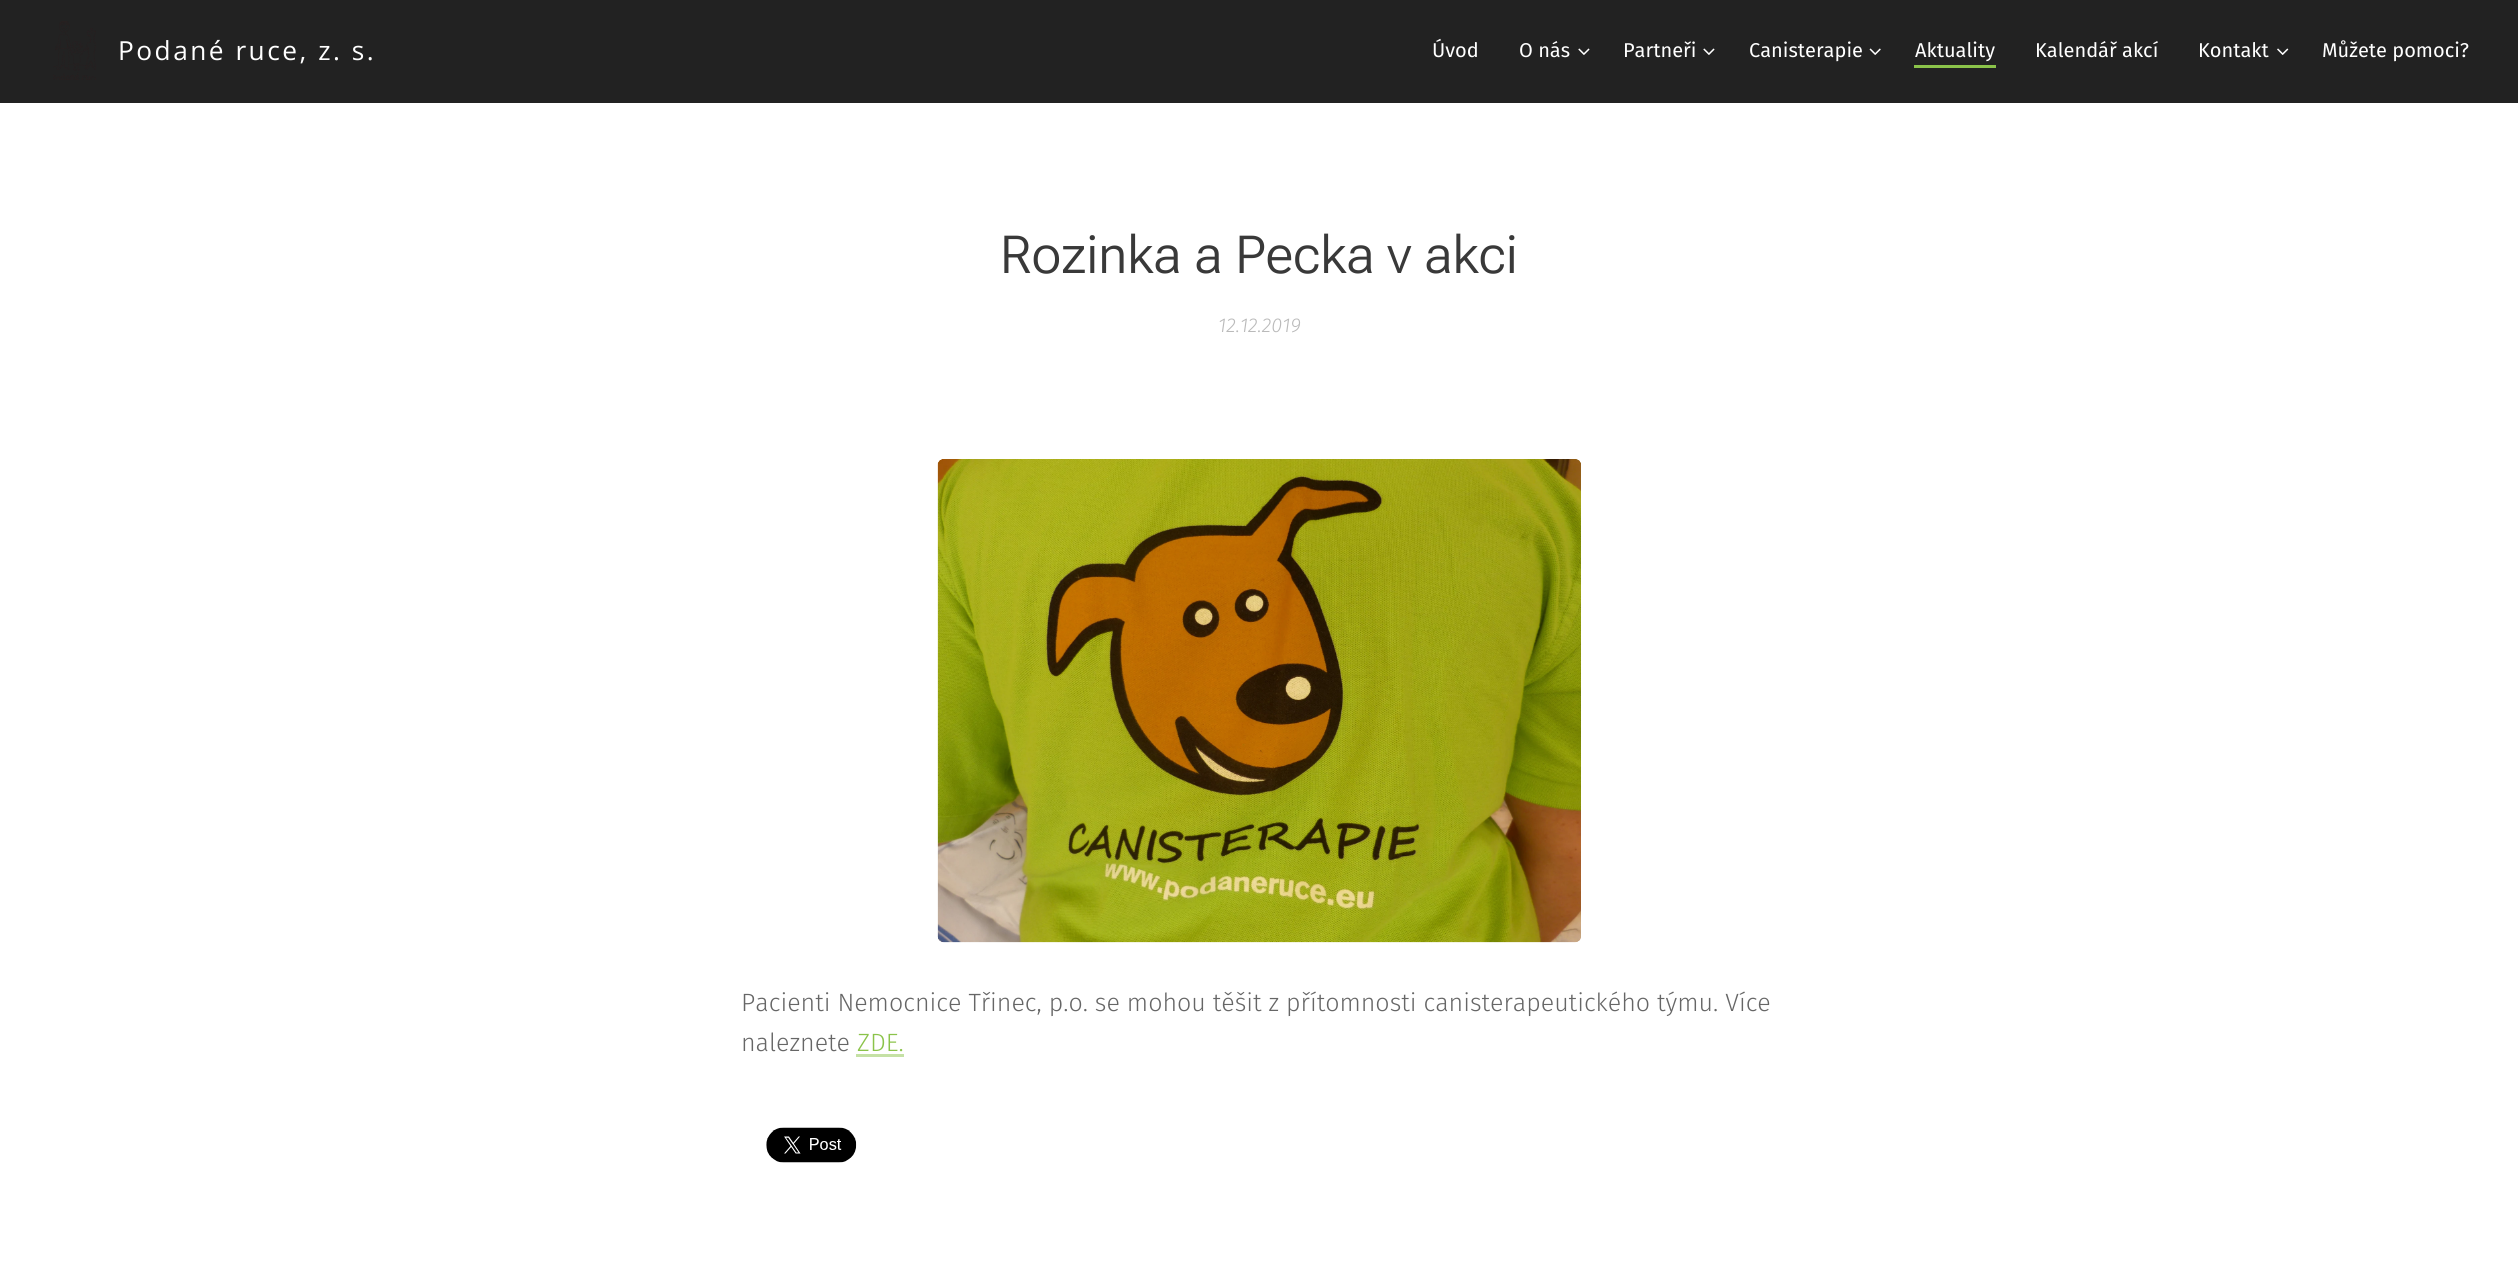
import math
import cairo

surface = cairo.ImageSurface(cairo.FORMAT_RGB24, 2518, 1271)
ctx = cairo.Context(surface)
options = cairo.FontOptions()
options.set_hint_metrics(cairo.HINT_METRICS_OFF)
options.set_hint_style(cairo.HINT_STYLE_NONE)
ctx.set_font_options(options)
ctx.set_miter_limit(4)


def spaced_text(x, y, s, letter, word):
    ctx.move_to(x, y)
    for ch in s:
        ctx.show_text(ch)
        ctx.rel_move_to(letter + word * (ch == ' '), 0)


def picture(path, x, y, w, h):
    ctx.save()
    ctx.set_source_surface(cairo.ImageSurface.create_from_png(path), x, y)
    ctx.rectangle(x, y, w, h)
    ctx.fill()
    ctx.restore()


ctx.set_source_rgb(1, 1, 1)
ctx.paint()
ctx.set_source_rgb(0.133, 0.133, 0.133)
ctx.rectangle(0, 0, 2518, 103)
ctx.fill()
picture("img1.png", 53, 21, 43, 59)
ctx.select_font_face("Open Sans")
ctx.set_font_size(26.25)
ctx.set_source_rgb(1, 1, 1)
spaced_text(118, 60, "Podané ruce, z. s.", 2.5, 0)
ctx.select_font_face("Fira Sans")
ctx.set_font_size(20)
ctx.move_to(1432, 57)
ctx.show_text("Úvod")
ctx.move_to(1519, 57)
ctx.show_text("O nás")
picture("img2.png", 1578, 48, 12, 7)
ctx.move_to(1623, 57)
ctx.show_text("Partneři")
picture("img2.png", 1703, 48, 12, 7)
ctx.move_to(1749, 57)
ctx.show_text("Canisterapie")
picture("img3.png", 1869, 48, 12, 7)
ctx.move_to(1915, 57)
ctx.show_text("Aktuality")
ctx.set_source_rgb(0.545, 0.765, 0.29)
ctx.rectangle(1914, 65, 82, 3)
ctx.fill()
ctx.set_source_rgb(1, 1, 1)
ctx.move_to(2035, 57)
ctx.show_text("Kalendář akcí")
ctx.move_to(2198, 57)
ctx.show_text("Kontakt")
picture("img4.png", 2277, 48, 12, 7)
ctx.move_to(2322, 57)
ctx.show_text("Můžete pomoci?")
ctx.select_font_face("Roboto Flex Light")
ctx.set_font_size(52.5)
ctx.set_source_rgb(0.224, 0.224, 0.224)
ctx.move_to(1000, 273)
ctx.show_text("Rozinka a Pecka v akci")
ctx.select_font_face("Fira Sans Light", cairo.FONT_SLANT_ITALIC)
ctx.set_font_size(20)
ctx.set_source_rgb(0.729, 0.729, 0.729)
ctx.move_to(1218, 332)
ctx.show_text("12.12.2019")
picture("img5.png", 937, 459, 644, 484)
ctx.select_font_face("Fira Sans Light")
ctx.set_font_size(25)
ctx.set_source_rgb(0.4, 0.4, 0.4)
ctx.move_to(741, 1011)
ctx.show_text("Pacienti Nemocnice Třinec, p.o. se mohou těšit z přítomnosti canisterapeutického týmu. Více")
ctx.move_to(741, 1051)
ctx.show_text("naleznete")
ctx.set_source_rgb(0.545, 0.765, 0.29)
ctx.move_to(857, 1051)
ctx.show_text("ZDE.")
ctx.set_source_rgb(0.773, 0.882, 0.647)
ctx.rectangle(856, 1054, 48, 3)
ctx.fill()
picture("img6.png", 766, 1127, 91, 36)
surface.write_to_png("page.png")
